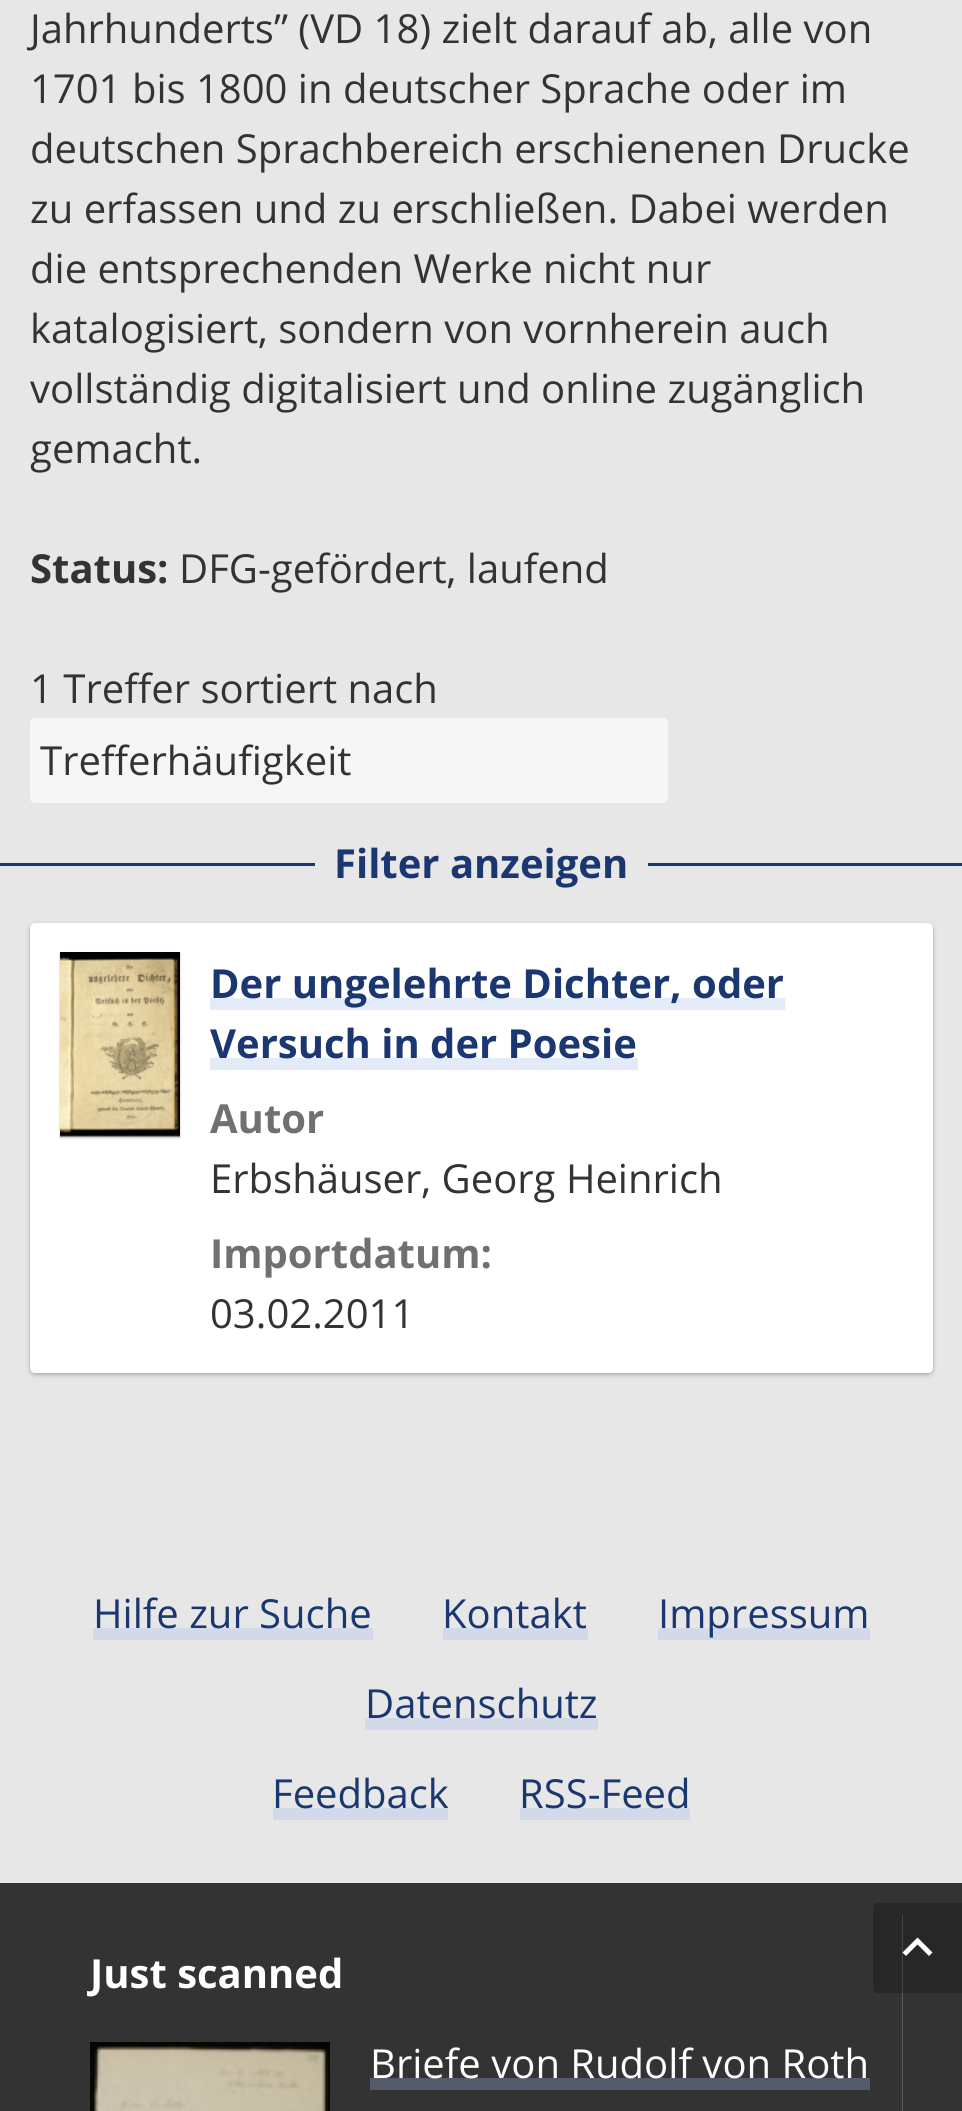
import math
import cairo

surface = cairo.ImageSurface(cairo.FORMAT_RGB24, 962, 2111)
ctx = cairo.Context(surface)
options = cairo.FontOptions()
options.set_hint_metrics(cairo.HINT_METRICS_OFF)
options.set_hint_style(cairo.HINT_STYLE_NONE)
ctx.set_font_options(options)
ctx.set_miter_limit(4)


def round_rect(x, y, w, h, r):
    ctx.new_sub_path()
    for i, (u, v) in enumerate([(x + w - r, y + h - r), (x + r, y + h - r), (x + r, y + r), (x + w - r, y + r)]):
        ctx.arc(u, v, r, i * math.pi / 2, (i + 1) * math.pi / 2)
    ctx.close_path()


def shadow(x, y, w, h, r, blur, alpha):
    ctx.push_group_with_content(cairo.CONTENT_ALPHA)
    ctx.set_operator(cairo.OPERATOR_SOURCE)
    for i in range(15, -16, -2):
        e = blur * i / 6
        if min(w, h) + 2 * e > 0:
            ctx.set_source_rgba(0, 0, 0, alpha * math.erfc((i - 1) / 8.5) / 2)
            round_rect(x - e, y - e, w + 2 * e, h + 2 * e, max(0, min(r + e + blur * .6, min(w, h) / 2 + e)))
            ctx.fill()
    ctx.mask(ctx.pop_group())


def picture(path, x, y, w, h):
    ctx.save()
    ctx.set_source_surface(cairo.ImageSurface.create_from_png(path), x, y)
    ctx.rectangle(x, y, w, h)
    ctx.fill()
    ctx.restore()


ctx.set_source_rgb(0.906, 0.906, 0.906)
ctx.paint()
ctx.select_font_face("Open Sans")
ctx.set_font_size(40)
ctx.set_source_rgb(0.2, 0.2, 0.2)
ctx.move_to(30, 43)
ctx.show_text("Jahrhunderts” (VD 18) zielt darauf ab, alle von")
ctx.move_to(30, 103)
ctx.show_text("1701 bis 1800 in deutscher Sprache oder im")
ctx.move_to(30, 163)
ctx.show_text("deutschen Sprachbereich erschienenen Drucke")
ctx.move_to(30, 223)
ctx.show_text("zu erfassen und zu erschließen. Dabei werden")
ctx.move_to(30, 283)
ctx.show_text("die entsprechenden Werke nicht nur")
ctx.move_to(30, 343)
ctx.show_text("katalogisiert, sondern von vornherein auch")
ctx.move_to(30, 403)
ctx.show_text("vollständig digitalisiert und online zugänglich")
ctx.move_to(30, 463)
ctx.show_text("gemacht.")
ctx.select_font_face("Open Sans", cairo.FONT_SLANT_NORMAL, cairo.FONT_WEIGHT_BOLD)
ctx.move_to(30, 583)
ctx.show_text("Status:")
ctx.select_font_face("Open Sans")
ctx.move_to(179, 583)
ctx.show_text("DFG-gefördert, laufend")
ctx.move_to(30, 703)
ctx.show_text("1 Treffer sortiert nach")
ctx.set_source_rgb(0.961, 0.961, 0.961)
round_rect(30, 718, 638, 85, 5)
ctx.fill()
ctx.set_source_rgb(0.2, 0.2, 0.2)
ctx.move_to(40, 775)
ctx.show_text("Trefferhäufigkeit")
ctx.set_source_rgb(0.102, 0.216, 0.443)
ctx.rectangle(0, 863, 962, 3)
ctx.fill()
ctx.set_source_rgb(0.906, 0.906, 0.906)
round_rect(315, 833, 333, 60, 5)
ctx.fill()
ctx.select_font_face("Open Sans", cairo.FONT_SLANT_NORMAL, cairo.FONT_WEIGHT_BOLD)
ctx.set_source_rgb(0.102, 0.216, 0.443)
ctx.move_to(334, 878)
ctx.show_text("Filter anzeigen")
ctx.set_source_rgb(0, 0, 0)
shadow(30, 925, 903, 450, 5, 2.5, 0.24)
shadow(30, 923, 903, 450, 5, 1, 0.08)
ctx.set_source_rgb(1, 1, 1)
round_rect(30, 923, 903, 450, 5)
ctx.fill()
ctx.set_source_rgb(0, 0, 0)
shadow(60, 953, 120, 185, 0, 1, 0.24)
picture("img1.png", 60, 952, 120, 185)
ctx.set_source_rgb(0.89, 0.918, 0.973)
ctx.rectangle(210, 998, 575, 12)
ctx.fill()
ctx.set_source_rgb(0.102, 0.216, 0.443)
ctx.move_to(210, 998)
ctx.show_text("Der ungelehrte Dichter, oder")
ctx.set_source_rgb(0.89, 0.918, 0.973)
ctx.rectangle(210, 1058, 428, 12)
ctx.fill()
ctx.set_source_rgb(0.102, 0.216, 0.443)
ctx.move_to(210, 1058)
ctx.show_text("Versuch in der Poesie")
ctx.set_source_rgb(0.439, 0.439, 0.439)
ctx.move_to(210, 1133)
ctx.show_text("Autor")
ctx.select_font_face("Open Sans")
ctx.set_source_rgb(0.2, 0.2, 0.2)
ctx.move_to(210, 1193)
ctx.show_text("Erbshäuser, Georg Heinrich")
ctx.select_font_face("Open Sans", cairo.FONT_SLANT_NORMAL, cairo.FONT_WEIGHT_BOLD)
ctx.set_source_rgb(0.439, 0.439, 0.439)
ctx.move_to(210, 1268)
ctx.show_text("Importdatum:")
ctx.select_font_face("Open Sans")
ctx.set_source_rgb(0.2, 0.2, 0.2)
ctx.move_to(210, 1328)
ctx.show_text("03.02.2011")
ctx.set_source_rgb(0.824, 0.851, 0.91)
ctx.rectangle(93, 1628, 280, 12)
ctx.fill()
ctx.set_source_rgb(0.102, 0.216, 0.443)
ctx.move_to(93, 1628)
ctx.show_text("Hilfe zur Suche")
ctx.set_source_rgb(0.824, 0.851, 0.91)
ctx.rectangle(443, 1628, 145, 12)
ctx.fill()
ctx.set_source_rgb(0.102, 0.216, 0.443)
ctx.move_to(442, 1628)
ctx.show_text("Kontakt")
ctx.set_source_rgb(0.824, 0.851, 0.91)
ctx.rectangle(658, 1628, 212, 12)
ctx.fill()
ctx.set_source_rgb(0.102, 0.216, 0.443)
ctx.move_to(658, 1628)
ctx.show_text("Impressum")
ctx.set_source_rgb(0.824, 0.851, 0.91)
ctx.rectangle(365, 1718, 233, 12)
ctx.fill()
ctx.set_source_rgb(0.102, 0.216, 0.443)
ctx.move_to(365, 1718)
ctx.show_text("Datenschutz")
ctx.set_source_rgb(0.824, 0.851, 0.91)
ctx.rectangle(273, 1808, 175, 12)
ctx.fill()
ctx.set_source_rgb(0.102, 0.216, 0.443)
ctx.move_to(272, 1808)
ctx.show_text("Feedback")
ctx.set_source_rgb(0.824, 0.851, 0.91)
ctx.rectangle(520, 1808, 170, 12)
ctx.fill()
ctx.set_source_rgb(0.102, 0.216, 0.443)
ctx.move_to(519, 1808)
ctx.show_text("RSS-Feed")
ctx.set_source_rgb(0.2, 0.2, 0.2)
ctx.rectangle(0, 1883, 962, 228)
ctx.fill()
ctx.set_source_rgb(0.361, 0.361, 0.361)
ctx.new_path()
ctx.move_to(60, 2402)
ctx.line_to(60, 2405)
ctx.line_to(903, 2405)
ctx.line_to(903, 1915)
ctx.line_to(902, 1915)
ctx.line_to(902, 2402)
ctx.close_path()
ctx.fill()
ctx.set_source_rgba(0, 0, 0, 0.24)
ctx.new_path()
ctx.move_to(878, 1903)
ctx.line_to(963, 1903)
ctx.line_to(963, 1993)
ctx.line_to(878, 1993)
ctx.curve_to(875, 1993, 873, 1991, 873, 1988)
ctx.line_to(873, 1908)
ctx.curve_to(873, 1905, 875, 1903, 878, 1903)
ctx.close_path()
ctx.fill()
ctx.set_source_rgb(1, 1, 1)
ctx.new_path()
ctx.move_to(906, 1956)
ctx.line_to(902.5, 1952.5)
ctx.line_to(917.5, 1937.5)
ctx.line_to(932.5, 1952.5)
ctx.line_to(929, 1956)
ctx.line_to(917.5, 1944.5)
ctx.close_path()
ctx.fill()
ctx.select_font_face("Open Sans", cairo.FONT_SLANT_NORMAL, cairo.FONT_WEIGHT_BOLD)
ctx.move_to(90, 1988)
ctx.show_text("Just scanned")
picture("img2.png", 90, 2042, 240, 69)
ctx.set_source_rgb(0.329, 0.357, 0.416)
ctx.rectangle(370, 2078, 500, 12)
ctx.fill()
ctx.select_font_face("Open Sans")
ctx.set_source_rgb(1, 1, 1)
ctx.move_to(370, 2078)
ctx.show_text("Briefe von Rudolf von Roth")
surface.write_to_png("page.png")
